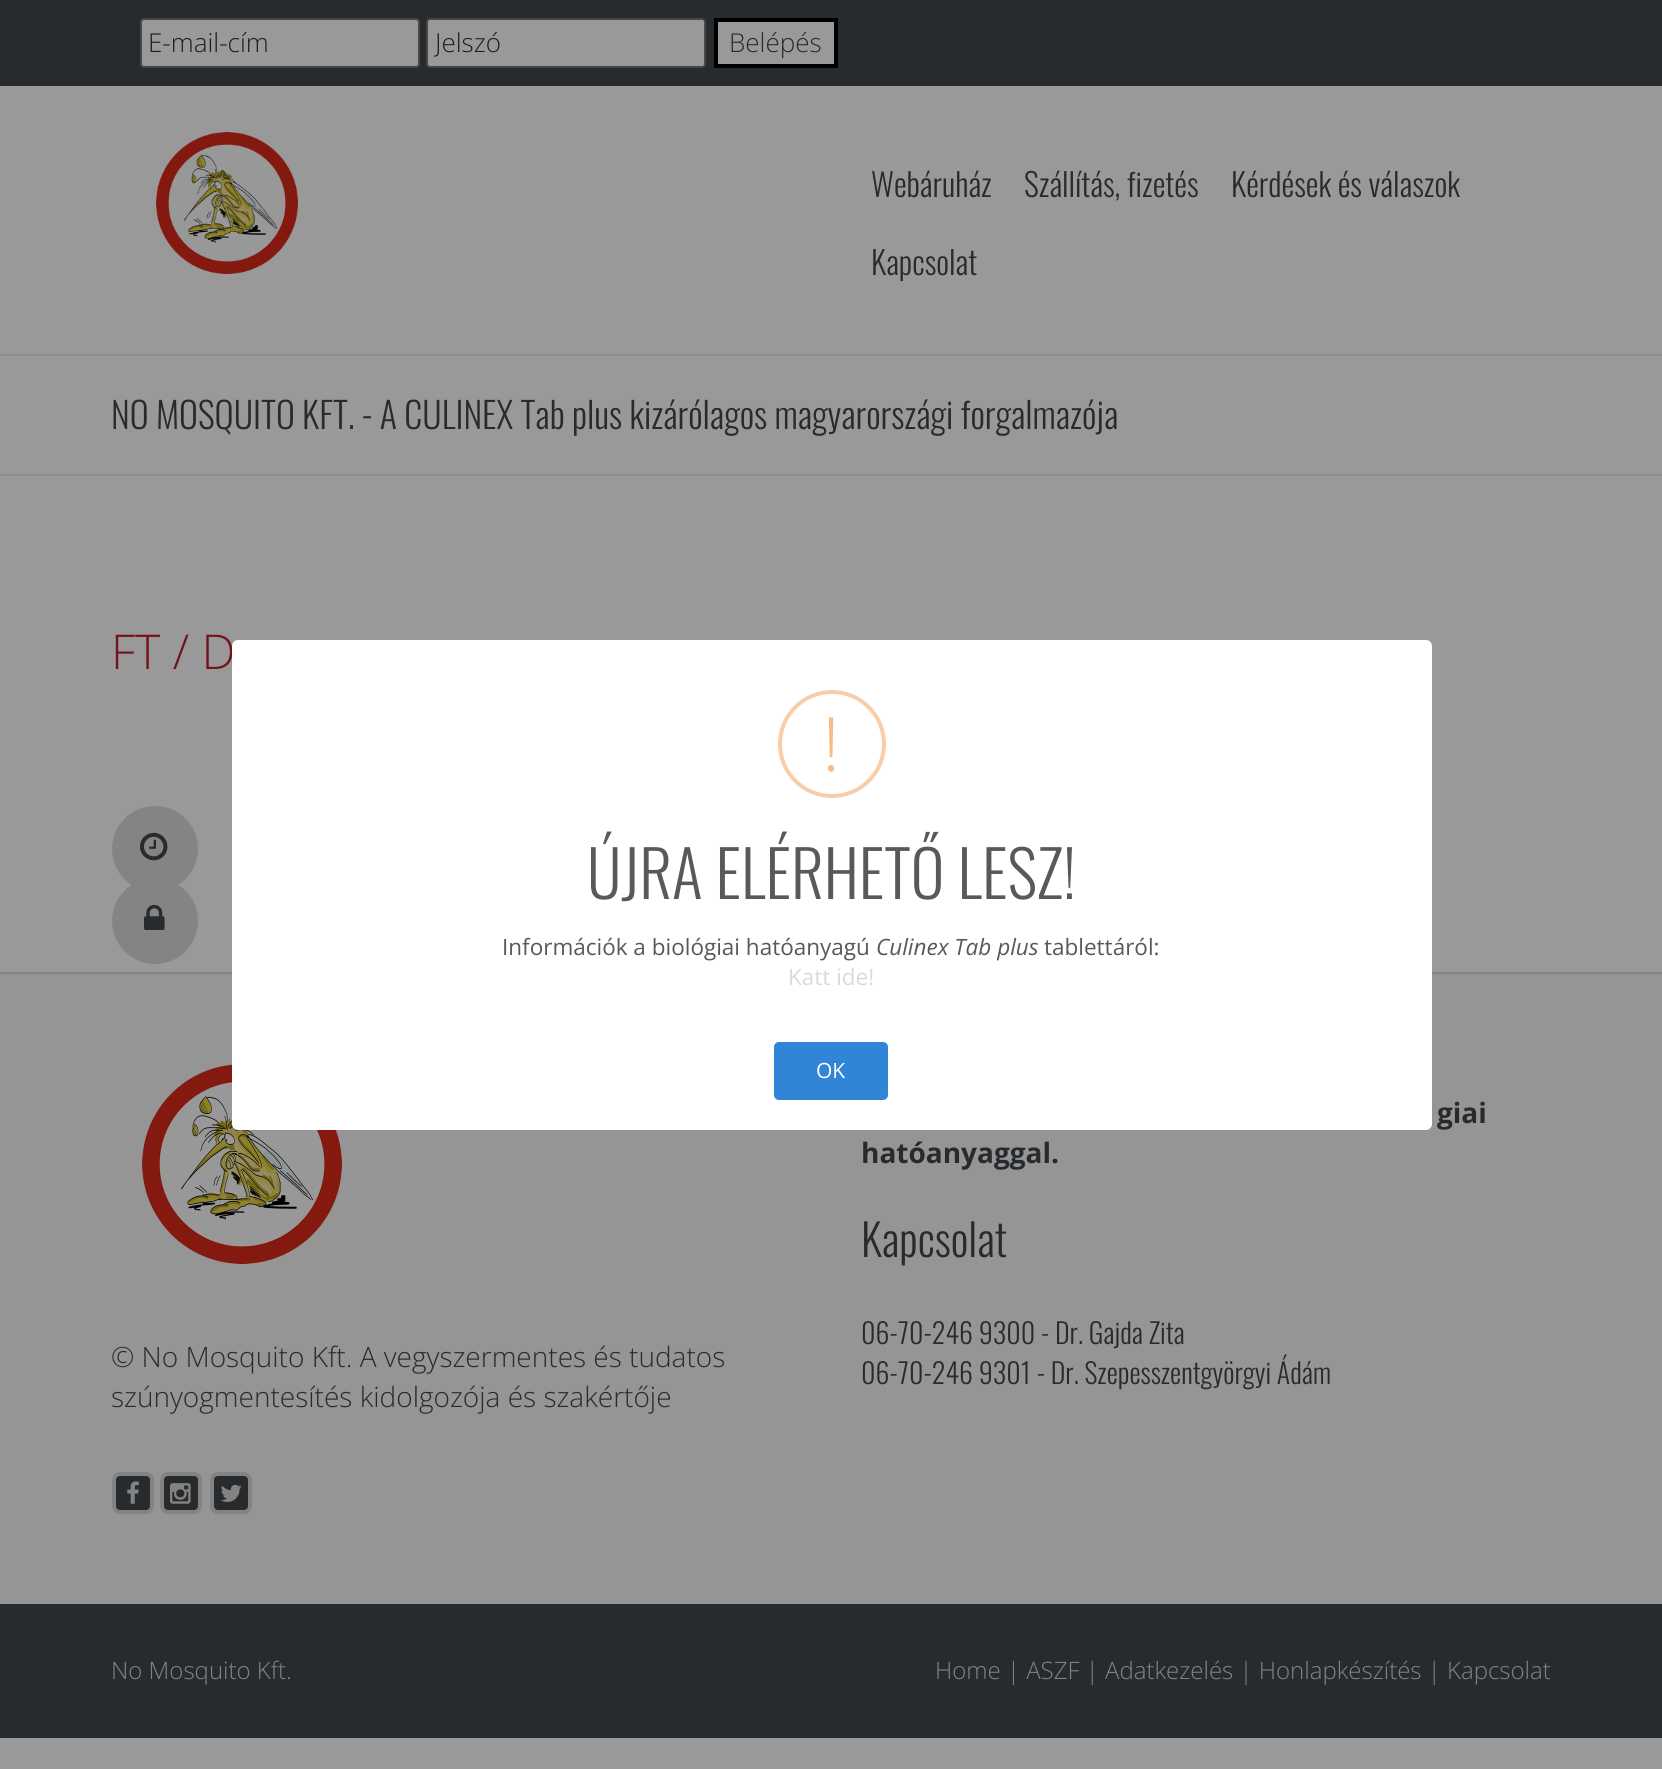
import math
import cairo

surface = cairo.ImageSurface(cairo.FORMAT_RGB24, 1662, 1769)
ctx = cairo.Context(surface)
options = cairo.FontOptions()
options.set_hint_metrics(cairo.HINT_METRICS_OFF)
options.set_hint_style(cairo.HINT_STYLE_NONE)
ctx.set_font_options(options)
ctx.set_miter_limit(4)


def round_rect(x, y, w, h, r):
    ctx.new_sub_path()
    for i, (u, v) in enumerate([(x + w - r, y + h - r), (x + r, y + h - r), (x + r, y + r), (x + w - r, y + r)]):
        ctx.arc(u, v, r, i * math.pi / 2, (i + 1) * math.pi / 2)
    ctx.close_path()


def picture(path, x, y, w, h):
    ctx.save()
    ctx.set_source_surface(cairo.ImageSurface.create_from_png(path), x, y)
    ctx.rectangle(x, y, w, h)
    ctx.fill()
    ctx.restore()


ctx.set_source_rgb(0.6, 0.6, 0.6)
ctx.paint()
ctx.set_source_rgb(0.157, 0.169, 0.18)
ctx.rectangle(0, 0, 1662, 86)
ctx.fill()
ctx.set_source_rgb(0.6, 0.6, 0.6)
round_rect(141, 19, 278, 48, 3)
ctx.fill_preserve()
ctx.set_source_rgb(0.278, 0.278, 0.278)
ctx.stroke()
ctx.select_font_face("Open Sans Light")
ctx.set_font_size(26)
ctx.set_source_rgb(0.122, 0.122, 0.122)
ctx.move_to(148, 52)
ctx.show_text("E-mail-cím")
ctx.set_source_rgb(0.6, 0.6, 0.6)
round_rect(427, 19, 278, 48, 3)
ctx.fill_preserve()
ctx.set_source_rgb(0.278, 0.278, 0.278)
ctx.stroke()
ctx.save()
ctx.rectangle(434, 24, 264, 36)
ctx.clip()
ctx.set_source_rgb(0.122, 0.122, 0.122)
ctx.move_to(435, 52)
ctx.show_text("Jelszó")
ctx.restore()
ctx.set_source_rgb(0.6, 0.6, 0.6)
ctx.rectangle(716, 20, 120, 46)
ctx.fill_preserve()
ctx.set_source_rgb(0, 0, 0)
ctx.set_line_width(4)
ctx.stroke()
ctx.set_source_rgb(0.157, 0.169, 0.18)
ctx.move_to(729, 52)
ctx.show_text("Belépés")
picture("img1.png", 156, 132, 142, 142)
ctx.select_font_face("Oswald Light")
ctx.set_font_size(32)
ctx.move_to(871, 197)
ctx.show_text("Webáruház")
ctx.move_to(1024, 197)
ctx.show_text("Szállítás, fizetés")
ctx.move_to(1231, 197)
ctx.show_text("Kérdések és válaszok")
ctx.move_to(871, 275)
ctx.show_text("Kapcsolat")
ctx.set_source_rgb(0.561, 0.561, 0.561)
ctx.rectangle(0, 354, 1662, 2)
ctx.fill()
ctx.set_font_size(36)
ctx.set_source_rgb(0.157, 0.169, 0.18)
ctx.move_to(111, 429)
ctx.show_text("NO MOSQUITO KFT. - A CULINEX Tab plus kizárólagos magyarországi forgalmazója")
ctx.set_source_rgb(0.561, 0.561, 0.561)
ctx.rectangle(0, 474, 1662, 2)
ctx.fill()
ctx.select_font_face("Open Sans Light")
ctx.set_font_size(48)
ctx.set_source_rgb(0.451, 0.071, 0.11)
ctx.move_to(111, 669)
ctx.show_text("FT / D")
ctx.set_source_rgb(0.518, 0.518, 0.518)
ctx.new_path()
ctx.arc(155, 849, 43, 0, 2 * math.pi)
ctx.fill()
picture("img2.png", 140, 832, 28, 29)
ctx.arc(155, 921, 43, 0, 2 * math.pi)
ctx.fill()
picture("img3.png", 144, 904, 21, 26)
ctx.set_source_rgb(0.584, 0.584, 0.584)
ctx.rectangle(0, 974, 1662, 630)
ctx.fill()
ctx.set_source_rgb(0.518, 0.518, 0.518)
ctx.rectangle(0, 972, 1662, 2)
ctx.fill()
ctx.select_font_face("Open Sans", cairo.FONT_SLANT_NORMAL, cairo.FONT_WEIGHT_BOLD)
ctx.set_font_size(28)
ctx.set_source_rgb(0.157, 0.169, 0.18)
ctx.move_to(1437, 1123)
ctx.show_text("giai")
ctx.move_to(861, 1163)
ctx.show_text("hatóanyaggal.")
picture("img4.png", 142, 1064, 200, 200)
ctx.select_font_face("Open Sans Light")
ctx.move_to(111, 1367)
ctx.show_text("© No Mosquito Kft. A vegyszermentes és tudatos")
ctx.move_to(111, 1407)
ctx.show_text("szúnyogmentesítés kidolgozója és szakértője")
round_rect(114, 1474, 38, 38, 6)
ctx.fill_preserve()
ctx.set_source_rgb(0.514, 0.514, 0.514)
ctx.stroke()
picture("img5.png", 127, 1481, 12, 23)
ctx.set_source_rgb(0.157, 0.169, 0.18)
round_rect(162, 1474, 38, 38, 6)
ctx.fill_preserve()
ctx.set_source_rgb(0.514, 0.514, 0.514)
ctx.stroke()
picture("img6.png", 170, 1483, 21, 21)
ctx.set_source_rgb(0.157, 0.169, 0.18)
round_rect(212, 1474, 38, 38, 6)
ctx.fill_preserve()
ctx.set_source_rgb(0.514, 0.514, 0.514)
ctx.stroke()
picture("img7.png", 220, 1484, 22, 18)
ctx.select_font_face("Oswald Light")
ctx.set_font_size(44)
ctx.set_source_rgb(0.157, 0.169, 0.18)
ctx.move_to(861, 1257)
ctx.show_text("Kapcsolat")
ctx.set_font_size(28)
ctx.move_to(861, 1344)
ctx.show_text("06-70-246 9300 - Dr. Gajda Zita")
ctx.move_to(861, 1384)
ctx.show_text("06-70-246 9301 - Dr. Szepesszentgyörgyi Ádám")
ctx.rectangle(0, 1604, 1662, 134)
ctx.fill()
ctx.select_font_face("Open Sans Light")
ctx.set_font_size(24)
ctx.set_source_rgb(0.514, 0.514, 0.514)
ctx.move_to(111, 1679)
ctx.show_text("No Mosquito Kft.")
ctx.move_to(935, 1679)
ctx.show_text("Home | ASZF | Adatkezelés | Honlapkészítés | Kapcsolat")
ctx.set_source_rgb(1, 1, 1)
round_rect(232, 640, 1200, 490, 6)
ctx.fill()
ctx.arc(832, 744, 52, 0, 2 * math.pi)
ctx.set_source_rgb(0.98, 0.808, 0.659)
ctx.stroke()
ctx.set_font_size(75)
ctx.set_source_rgb(0.973, 0.733, 0.525)
ctx.move_to(822, 771)
ctx.show_text("!")
ctx.select_font_face("Oswald Light")
ctx.set_font_size(64)
ctx.set_source_rgb(0.349, 0.349, 0.349)
ctx.move_to(587, 899)
ctx.show_text("ÚJRA ELÉRHETŐ LESZ!")
ctx.select_font_face("Open Sans")
ctx.set_font_size(22.5)
ctx.move_to(502, 955)
ctx.show_text("Információk a biológiai hatóanyagú")
ctx.select_font_face("Open Sans", cairo.FONT_SLANT_ITALIC)
ctx.move_to(876, 955)
ctx.show_text("Culinex Tab plus")
ctx.select_font_face("Open Sans")
ctx.move_to(1044, 955)
ctx.show_text("tablettáról:")
ctx.set_source_rgb(0.855, 0.855, 0.855)
ctx.move_to(788, 985)
ctx.show_text("Katt ide!")
ctx.set_source_rgb(0.188, 0.522, 0.839)
round_rect(774, 1042, 114, 58, 5)
ctx.fill()
ctx.set_font_size(21)
ctx.set_source_rgb(1, 1, 1)
ctx.move_to(816, 1078)
ctx.show_text("OK")
surface.write_to_png("page.png")
